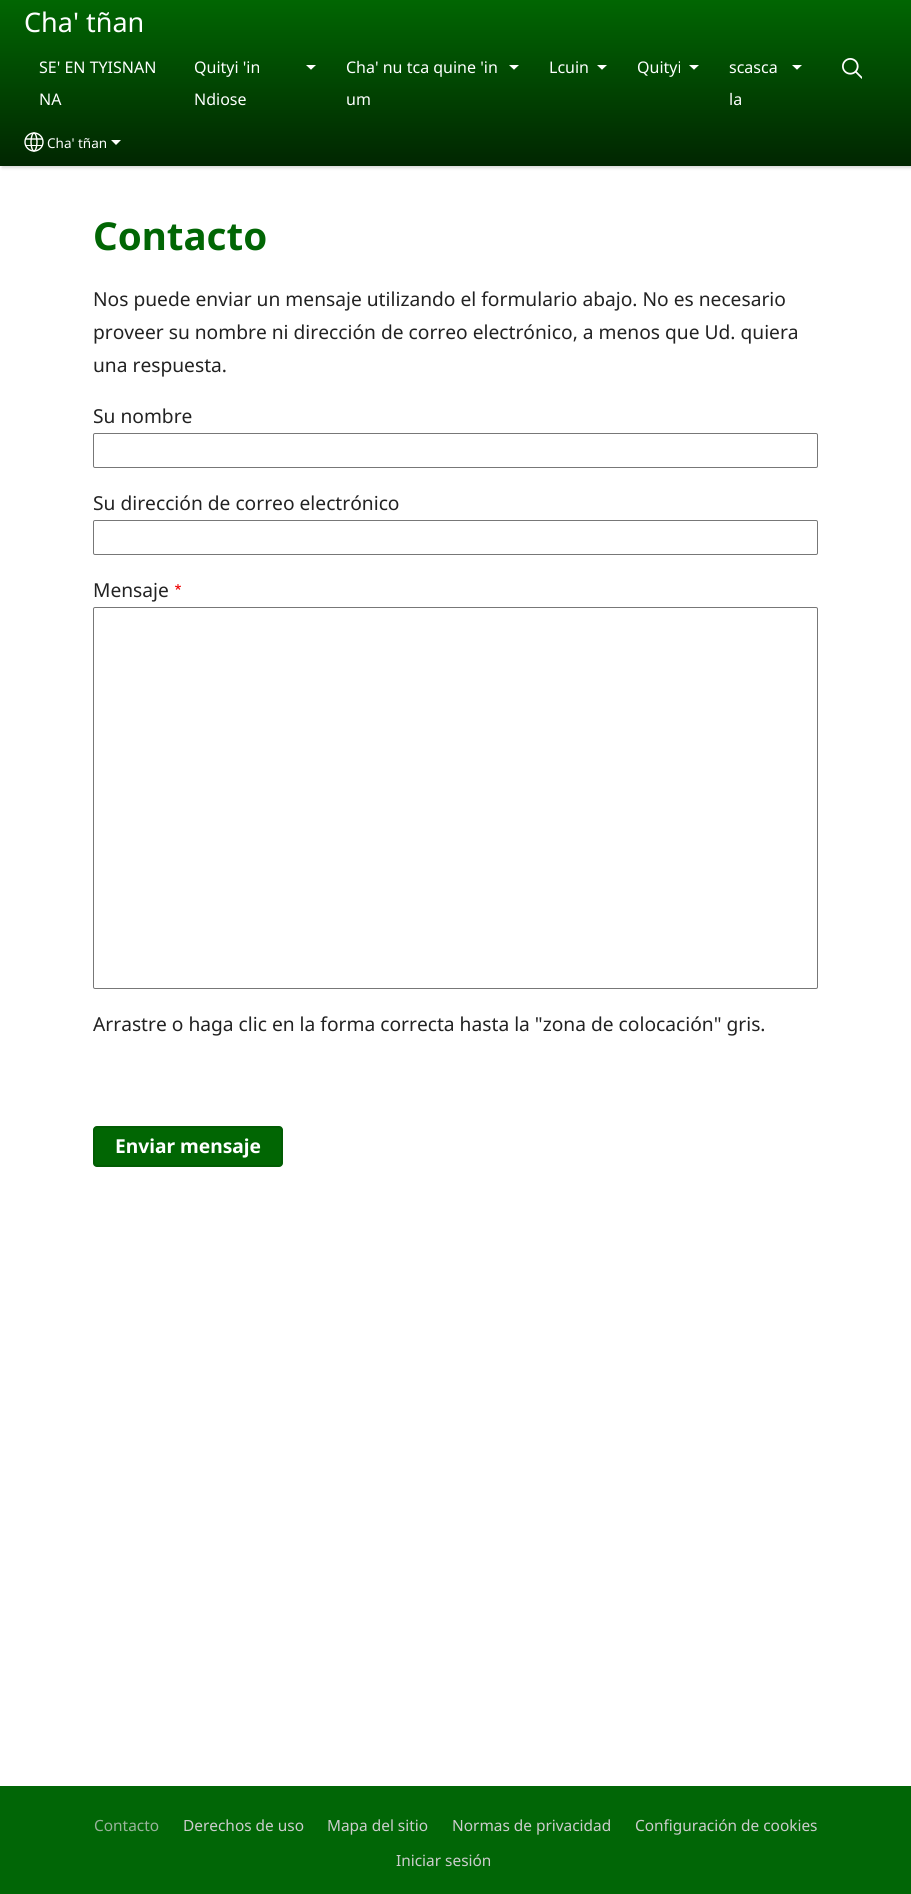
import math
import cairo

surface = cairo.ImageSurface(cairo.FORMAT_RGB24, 911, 1894)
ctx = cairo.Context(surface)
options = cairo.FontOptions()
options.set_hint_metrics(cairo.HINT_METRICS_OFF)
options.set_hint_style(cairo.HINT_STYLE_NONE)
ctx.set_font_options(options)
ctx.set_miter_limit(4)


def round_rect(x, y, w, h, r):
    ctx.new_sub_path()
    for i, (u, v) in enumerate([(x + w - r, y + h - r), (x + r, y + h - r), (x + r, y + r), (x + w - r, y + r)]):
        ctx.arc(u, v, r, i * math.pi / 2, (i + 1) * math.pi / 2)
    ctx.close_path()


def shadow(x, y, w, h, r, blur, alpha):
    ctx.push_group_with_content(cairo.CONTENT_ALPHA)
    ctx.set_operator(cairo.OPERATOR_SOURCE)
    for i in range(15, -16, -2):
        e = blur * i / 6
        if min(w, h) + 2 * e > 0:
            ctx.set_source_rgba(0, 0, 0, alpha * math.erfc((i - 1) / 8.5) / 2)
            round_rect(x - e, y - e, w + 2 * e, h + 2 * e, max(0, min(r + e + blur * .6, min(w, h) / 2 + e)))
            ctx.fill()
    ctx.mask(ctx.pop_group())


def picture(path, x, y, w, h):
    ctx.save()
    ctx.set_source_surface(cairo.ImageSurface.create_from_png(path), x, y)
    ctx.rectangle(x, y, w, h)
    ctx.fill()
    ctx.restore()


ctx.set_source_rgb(1, 1, 1)
ctx.paint()
ctx.set_source_rgb(0, 0, 0)
shadow(2, 2, 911, 166, 0, 1.5, 0.15)
gradient = cairo.LinearGradient(456, 0, 456, 166)
gradient.add_color_stop_rgba(0, 0.004, 0.4, 0.008, 1)
gradient.add_color_stop_rgba(1, 0.004, 0.149, 0.004, 1)
ctx.set_source(gradient)
ctx.rectangle(0, 0, 911, 166)
ctx.fill()
ctx.select_font_face("Noto Sans")
ctx.set_font_size(27)
ctx.set_source_rgb(0.996, 1, 1)
ctx.move_to(24, 32)
ctx.show_text("Cha' tñan")
ctx.set_font_size(16)
ctx.move_to(39, 73)
ctx.show_text("SE' EN TYISNAN")
ctx.move_to(39, 105)
ctx.show_text("NA")
ctx.move_to(194, 73)
ctx.show_text("Quityi 'in")
ctx.move_to(194, 105)
ctx.show_text("Ndiose")
picture("img1.png", 306, 65, 10, 5)
ctx.move_to(346, 73)
ctx.show_text("Cha' nu tca quine 'in")
ctx.move_to(346, 105)
ctx.show_text("um")
picture("img1.png", 509, 65, 10, 5)
ctx.move_to(549, 73)
ctx.show_text("Lcuin")
picture("img1.png", 597, 65, 10, 5)
ctx.move_to(637, 73)
ctx.show_text("Quityi")
picture("img1.png", 689, 65, 10, 5)
ctx.move_to(729, 73)
ctx.show_text("scasca")
ctx.move_to(729, 105)
ctx.show_text("la")
picture("img1.png", 792, 65, 10, 5)
picture("img2.png", 842, 58, 20, 21)
ctx.arc(34, 142, 9, 0, 2 * math.pi)
ctx.set_source_rgb(1, 1, 0.996)
ctx.set_line_width(1.4)
ctx.stroke()
ctx.new_path()
ctx.move_to(34, 133)
ctx.curve_to(35.5, 133, 37, 137, 37, 142)
ctx.curve_to(37, 147, 35.5, 151, 34, 151)
ctx.curve_to(32.5, 151, 31, 147, 31, 142)
ctx.curve_to(31, 137, 32.5, 133, 34, 133)
ctx.close_path()
ctx.stroke()
ctx.new_path()
ctx.move_to(25, 139)
ctx.line_to(42.5, 139)
ctx.stroke()
ctx.rectangle(25, 145, 18, 1)
ctx.fill()
ctx.set_font_size(13.5)
ctx.set_source_rgb(0.996, 1, 1)
ctx.move_to(47, 148)
ctx.show_text("Cha' tñan")
ctx.set_source_rgb(1, 1, 0.996)
ctx.new_path()
ctx.move_to(111, 140)
ctx.line_to(121, 140)
ctx.line_to(116, 145)
ctx.close_path()
ctx.fill()
ctx.select_font_face("Noto Sans", cairo.FONT_SLANT_NORMAL, cairo.FONT_WEIGHT_BOLD)
ctx.set_font_size(38.5)
ctx.set_source_rgb(0.004, 0.4, 0.016)
ctx.move_to(93, 250)
ctx.show_text("Contacto")
ctx.select_font_face("Noto Sans")
ctx.set_font_size(19.2)
ctx.set_source_rgb(0.133, 0.133, 0.133)
ctx.move_to(93, 306)
ctx.show_text("Nos puede enviar un mensaje utilizando el formulario abajo. No es necesario")
ctx.move_to(93, 339)
ctx.show_text("proveer su nombre ni dirección de correo electrónico, a menos que Ud. quiera")
ctx.move_to(93, 372)
ctx.show_text("una respuesta.")
ctx.move_to(93, 423)
ctx.show_text("Su nombre")
round_rect(93.5, 433.5, 724, 34, 1.5)
ctx.set_source_rgb(0.467, 0.467, 0.467)
ctx.set_line_width(1)
ctx.stroke()
ctx.set_source_rgb(0.133, 0.133, 0.133)
ctx.move_to(93, 510)
ctx.show_text("Su dirección de correo electrónico")
round_rect(93.5, 520.5, 724, 34, 1.5)
ctx.set_source_rgb(0.467, 0.467, 0.467)
ctx.stroke()
ctx.set_source_rgb(0.133, 0.133, 0.133)
ctx.move_to(93, 597)
ctx.show_text("Mensaje")
picture("img3.png", 175, 584, 6, 6)
round_rect(93.5, 607.5, 724, 381, 1.5)
ctx.set_source_rgb(0.467, 0.467, 0.467)
ctx.stroke()
ctx.set_source_rgb(0.133, 0.133, 0.133)
ctx.move_to(93, 1031)
ctx.show_text("Arrastre o haga clic en la forma correcta hasta la \"zona de colocación\" gris.")
ctx.set_source_rgb(0.004, 0.4, 0.012)
round_rect(93, 1126, 190, 41, 4)
ctx.fill()
round_rect(94, 1127, 188, 39, 3)
ctx.set_source_rgba(0, 0, 0, 0.1)
ctx.set_line_width(2)
ctx.stroke()
ctx.select_font_face("Noto Sans", cairo.FONT_SLANT_NORMAL, cairo.FONT_WEIGHT_BOLD)
ctx.set_source_rgb(0.996, 1, 1)
ctx.move_to(115, 1153)
ctx.show_text("Enviar mensaje")
ctx.set_source_rgb(0.004, 0.4, 0.024)
ctx.rectangle(0, 1786, 911, 108)
ctx.fill()
ctx.select_font_face("Noto Sans")
ctx.set_font_size(15.4)
ctx.set_source_rgb(0.6, 0.702, 0.608)
ctx.move_to(94, 1831)
ctx.show_text("Contacto")
ctx.set_source_rgb(0.8, 0.8, 0.8)
ctx.move_to(183, 1831)
ctx.show_text("Derechos de uso")
ctx.move_to(327, 1831)
ctx.show_text("Mapa del sitio")
ctx.move_to(452, 1831)
ctx.show_text("Normas de privacidad")
ctx.move_to(635, 1831)
ctx.show_text("Configuración de cookies")
ctx.move_to(396, 1866)
ctx.show_text("Iniciar sesión")
surface.write_to_png("page.png")
